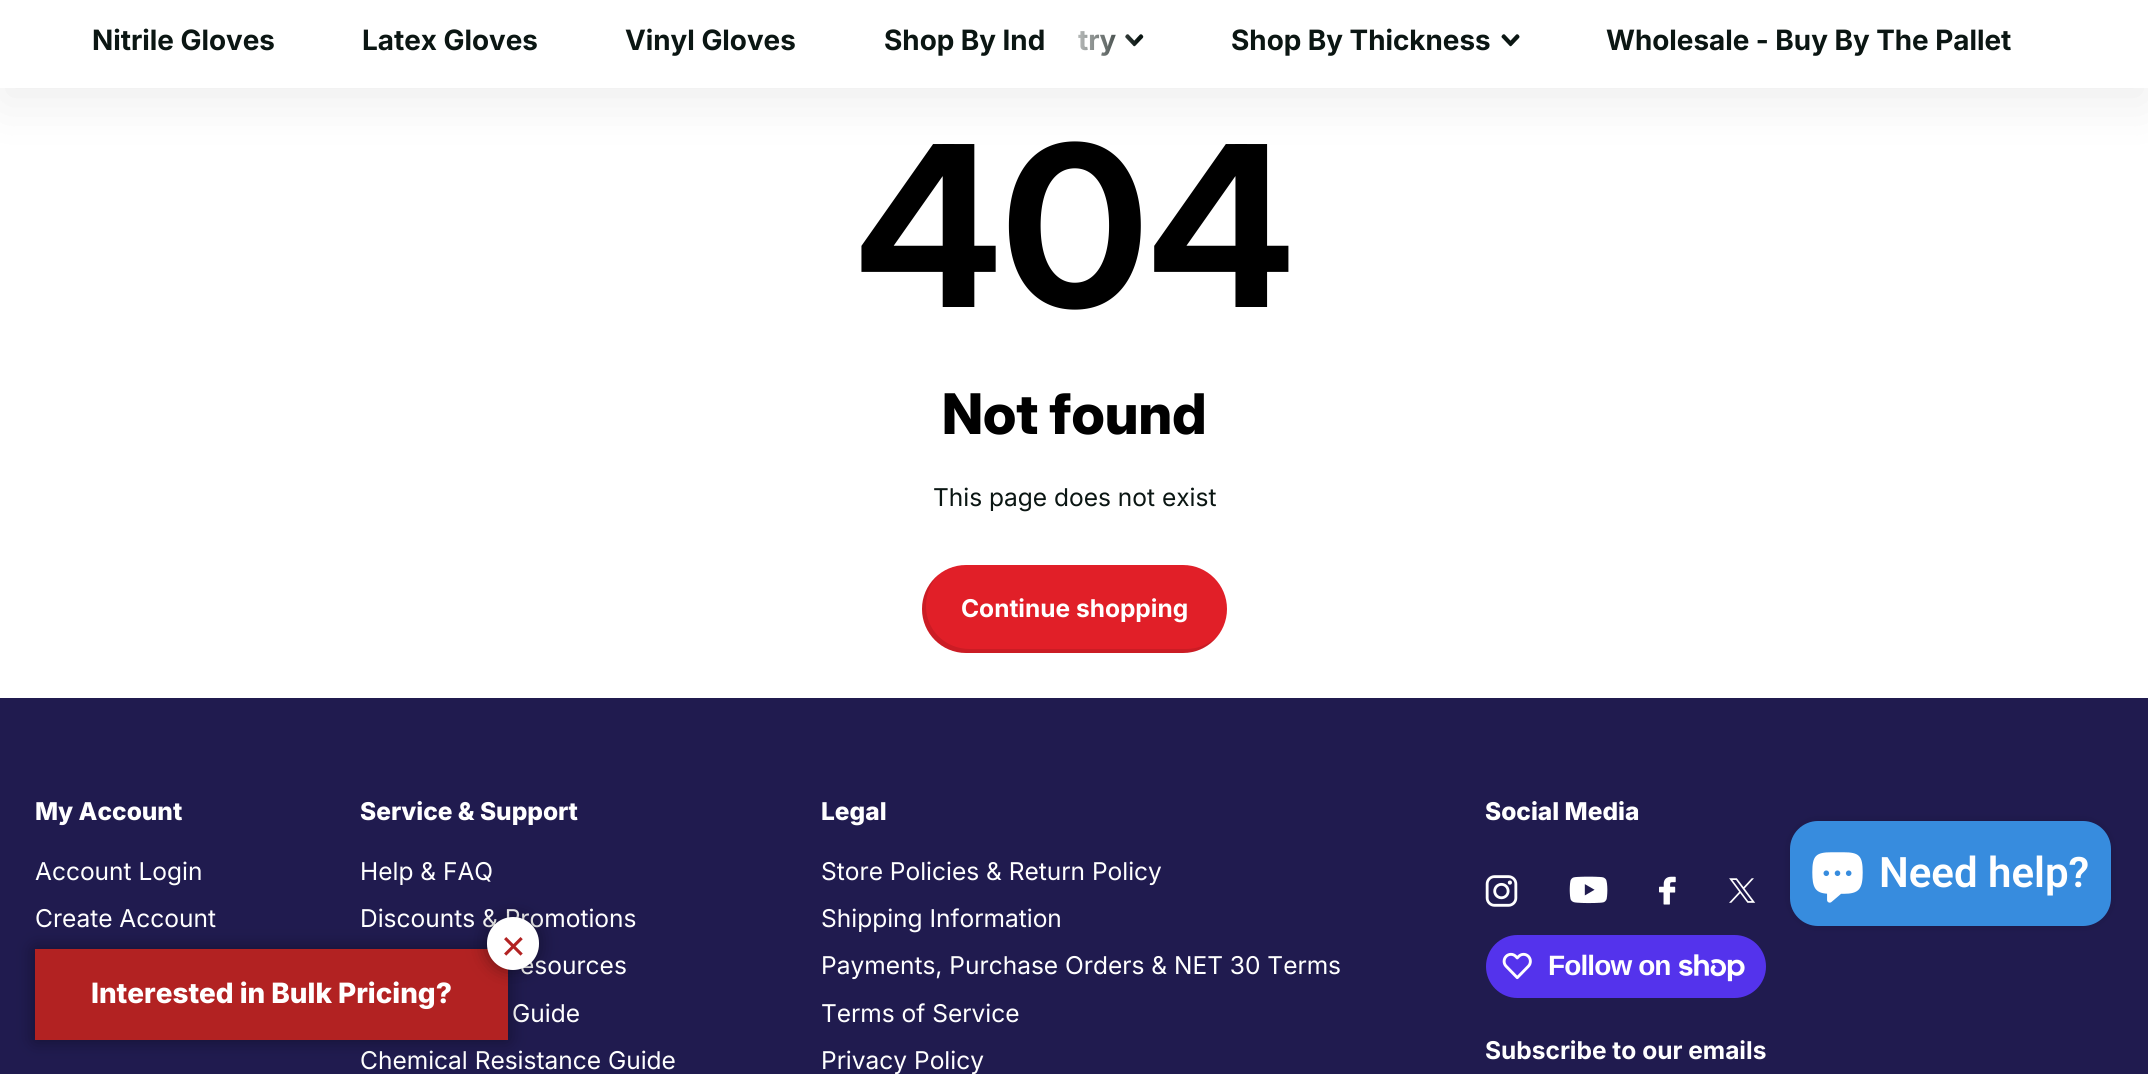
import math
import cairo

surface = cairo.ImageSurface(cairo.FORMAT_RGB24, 2148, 1074)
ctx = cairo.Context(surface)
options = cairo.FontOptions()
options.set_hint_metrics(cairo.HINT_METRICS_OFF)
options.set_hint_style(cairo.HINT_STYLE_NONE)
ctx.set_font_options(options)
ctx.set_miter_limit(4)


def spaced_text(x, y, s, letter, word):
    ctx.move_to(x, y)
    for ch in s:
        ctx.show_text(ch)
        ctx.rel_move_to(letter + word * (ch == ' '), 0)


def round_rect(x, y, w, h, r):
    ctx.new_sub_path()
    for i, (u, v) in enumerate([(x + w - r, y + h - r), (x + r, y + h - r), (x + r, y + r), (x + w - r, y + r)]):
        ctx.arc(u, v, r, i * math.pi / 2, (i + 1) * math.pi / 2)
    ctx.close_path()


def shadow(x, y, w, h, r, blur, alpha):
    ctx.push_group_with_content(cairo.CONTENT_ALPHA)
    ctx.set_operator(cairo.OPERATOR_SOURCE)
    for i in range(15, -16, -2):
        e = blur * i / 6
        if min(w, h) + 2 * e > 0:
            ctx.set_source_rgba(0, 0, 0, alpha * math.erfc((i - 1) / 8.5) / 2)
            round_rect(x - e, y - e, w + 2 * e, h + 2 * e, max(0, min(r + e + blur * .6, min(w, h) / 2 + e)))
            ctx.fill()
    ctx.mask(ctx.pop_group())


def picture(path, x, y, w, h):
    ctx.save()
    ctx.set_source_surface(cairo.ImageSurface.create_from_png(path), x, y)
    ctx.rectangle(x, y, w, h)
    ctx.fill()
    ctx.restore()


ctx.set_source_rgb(1, 1, 1)
ctx.paint()
ctx.set_source_rgb(0, 0, 0)
shadow(0, -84, 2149, 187, 0, 28, 0.07)
ctx.set_source_rgb(1, 1, 1)
ctx.rectangle(0, 0, 2148, 88)
ctx.fill()
ctx.select_font_face("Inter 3", cairo.FONT_SLANT_NORMAL, cairo.FONT_WEIGHT_BOLD)
ctx.set_font_size(28)
ctx.set_source_rgb(0.043, 0.086, 0.075)
ctx.move_to(92, 50)
ctx.show_text("Nitrile Gloves")
ctx.move_to(362, 50)
ctx.show_text("Latex Gloves")
ctx.move_to(625, 50)
ctx.show_text("Vinyl Gloves")
ctx.move_to(884, 50)
ctx.show_text("Shop By Ind")
ctx.move_to(1078, 50)
ctx.show_text("try")
picture("img1.png", 1125, 34, 19, 13)
ctx.move_to(1231, 50)
ctx.show_text("Shop By Thickness")
picture("img2.png", 1501, 34, 19, 13)
ctx.move_to(1606, 50)
ctx.show_text("Wholesale - Buy By The Pallet")
gradient = cairo.LinearGradient(1139, 36, 1052, 36)
gradient.add_color_stop_rgba(0, 1, 1, 1, 0)
gradient.add_color_stop_rgba(1, 1, 1, 1, 1)
ctx.set_source(gradient)
ctx.rectangle(1077, 31, 60, 25)
ctx.fill()
ctx.select_font_face("Inter", cairo.FONT_SLANT_NORMAL, cairo.FONT_WEIGHT_BOLD)
ctx.set_font_size(224)
ctx.set_source_rgb(0, 0, 0)
ctx.move_to(855, 307)
ctx.show_text("404")
ctx.select_font_face("Inter ExtraBold")
ctx.set_font_size(56)
ctx.move_to(942, 434)
ctx.show_text("Not found")
ctx.select_font_face("Inter")
ctx.set_font_size(24.5)
ctx.set_source_rgb(0.043, 0.086, 0.075)
ctx.move_to(933, 506)
ctx.show_text("This page does not exist")
ctx.set_source_rgb(0.882, 0.122, 0.157)
round_rect(922, 565, 305, 88, 44)
ctx.fill()
ctx.set_source_rgba(0, 0, 0, 0.1)
ctx.new_path()
ctx.move_to(939, 574)
ctx.curve_to(929, 582, 922, 595, 922, 609)
ctx.curve_to(922, 633, 942, 653, 966, 653)
ctx.line_to(1183, 653)
ctx.curve_to(1197, 653, 1209, 647, 1217, 637)
ctx.curve_to(1209, 644, 1198, 649, 1186, 649)
ctx.line_to(970, 649)
ctx.curve_to(945, 649, 926, 630, 926, 606)
ctx.curve_to(926, 593, 931, 582, 939, 574)
ctx.close_path()
ctx.fill()
ctx.select_font_face("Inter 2", cairo.FONT_SLANT_NORMAL, cairo.FONT_WEIGHT_BOLD)
ctx.set_source_rgb(1, 1, 1)
ctx.move_to(961, 617)
ctx.show_text("Continue shopping")
ctx.set_source_rgb(0.125, 0.106, 0.31)
ctx.rectangle(0, 698, 2148, 376)
ctx.fill()
ctx.select_font_face("Inter 2 ExtraBold")
ctx.set_source_rgb(1, 1, 1)
ctx.move_to(35, 820)
ctx.show_text("My Account")
ctx.select_font_face("Inter")
ctx.move_to(35, 880)
ctx.show_text("Account Login")
ctx.move_to(35, 927)
ctx.show_text("Create Account")
ctx.select_font_face("Inter 2 ExtraBold")
ctx.move_to(360, 820)
ctx.show_text("Service & Support")
ctx.select_font_face("Inter")
ctx.move_to(360, 880)
ctx.show_text("Help & FAQ")
ctx.move_to(360, 927)
ctx.show_text("Discounts & Promotions")
ctx.move_to(520, 974)
ctx.show_text("esources")
ctx.move_to(512, 1022)
ctx.show_text("Guide")
ctx.move_to(360, 1069)
ctx.show_text("Chemical Resistance Guide")
ctx.select_font_face("Inter 2 ExtraBold")
ctx.move_to(821, 820)
ctx.show_text("Legal")
ctx.select_font_face("Inter")
ctx.move_to(821, 880)
ctx.show_text("Store Policies & Return Policy")
ctx.move_to(821, 927)
ctx.show_text("Shipping Information")
ctx.move_to(821, 974)
ctx.show_text("Payments, Purchase Orders & NET 30 Terms")
ctx.move_to(821, 1022)
ctx.show_text("Terms of Service")
ctx.move_to(821, 1069)
ctx.show_text("Privacy Policy")
ctx.select_font_face("Inter 2 ExtraBold")
ctx.move_to(1485, 820)
ctx.show_text("Social Media")
picture("img3.png", 1485, 875, 33, 32)
picture("img4.png", 1569, 876, 39, 28)
picture("img5.png", 1659, 876, 17, 29)
picture("img6.png", 1729, 878, 27, 25)
ctx.set_source_rgb(0.329, 0.2, 0.922)
round_rect(1486, 935, 280, 63, 31.5)
ctx.fill()
picture("img7.png", 1502, 952, 30, 28)
ctx.select_font_face("Liberation Sans", cairo.FONT_SLANT_NORMAL, cairo.FONT_WEIGHT_BOLD)
ctx.set_font_size(28)
ctx.set_source_rgb(1, 1, 1)
spaced_text(1548, 975, "Follow on", -0.9, 0)
picture("img8.png", 1679, 954, 66, 28)
ctx.select_font_face("Inter 2", cairo.FONT_SLANT_NORMAL, cairo.FONT_WEIGHT_BOLD)
ctx.set_font_size(24.5)
ctx.move_to(1485, 1059)
ctx.show_text("Subscribe to our emails")
ctx.set_source_rgb(0, 0, 0)
shadow(1790, 821, 321, 105, 28, 4.5, 0.15)
ctx.set_source_rgb(0.216, 0.549, 0.871)
round_rect(1790, 821, 321, 105, 28)
ctx.fill()
picture("img9.png", 1812, 852, 51, 51)
ctx.select_font_face("Roboto SemiBold")
ctx.set_font_size(42)
ctx.set_source_rgb(1, 1, 1)
ctx.move_to(1879, 887)
ctx.show_text("Need help?")
ctx.set_source_rgb(0, 0, 0)
shadow(35, 949, 473, 91, 0, 9, 0.4)
ctx.set_source_rgb(0.698, 0.133, 0.133)
ctx.rectangle(35, 949, 473, 91)
ctx.fill()
ctx.set_source_rgb(0, 0, 0)
shadow(487, 917, 52, 53, 26, 9, 0.4)
ctx.set_source_rgb(1, 1, 1)
round_rect(487, 917, 52, 53, 26)
ctx.fill()
ctx.select_font_face("DejaVu Sans")
ctx.set_font_size(32)
ctx.set_source_rgb(0.698, 0.133, 0.133)
ctx.move_to(500, 958)
ctx.show_text("✕")
ctx.select_font_face("Inter 3 ExtraBold")
ctx.set_font_size(28)
ctx.set_source_rgb(1, 1, 1)
ctx.move_to(91, 1003)
ctx.show_text("Interested in Bulk Pricing?")
surface.write_to_png("page.png")
